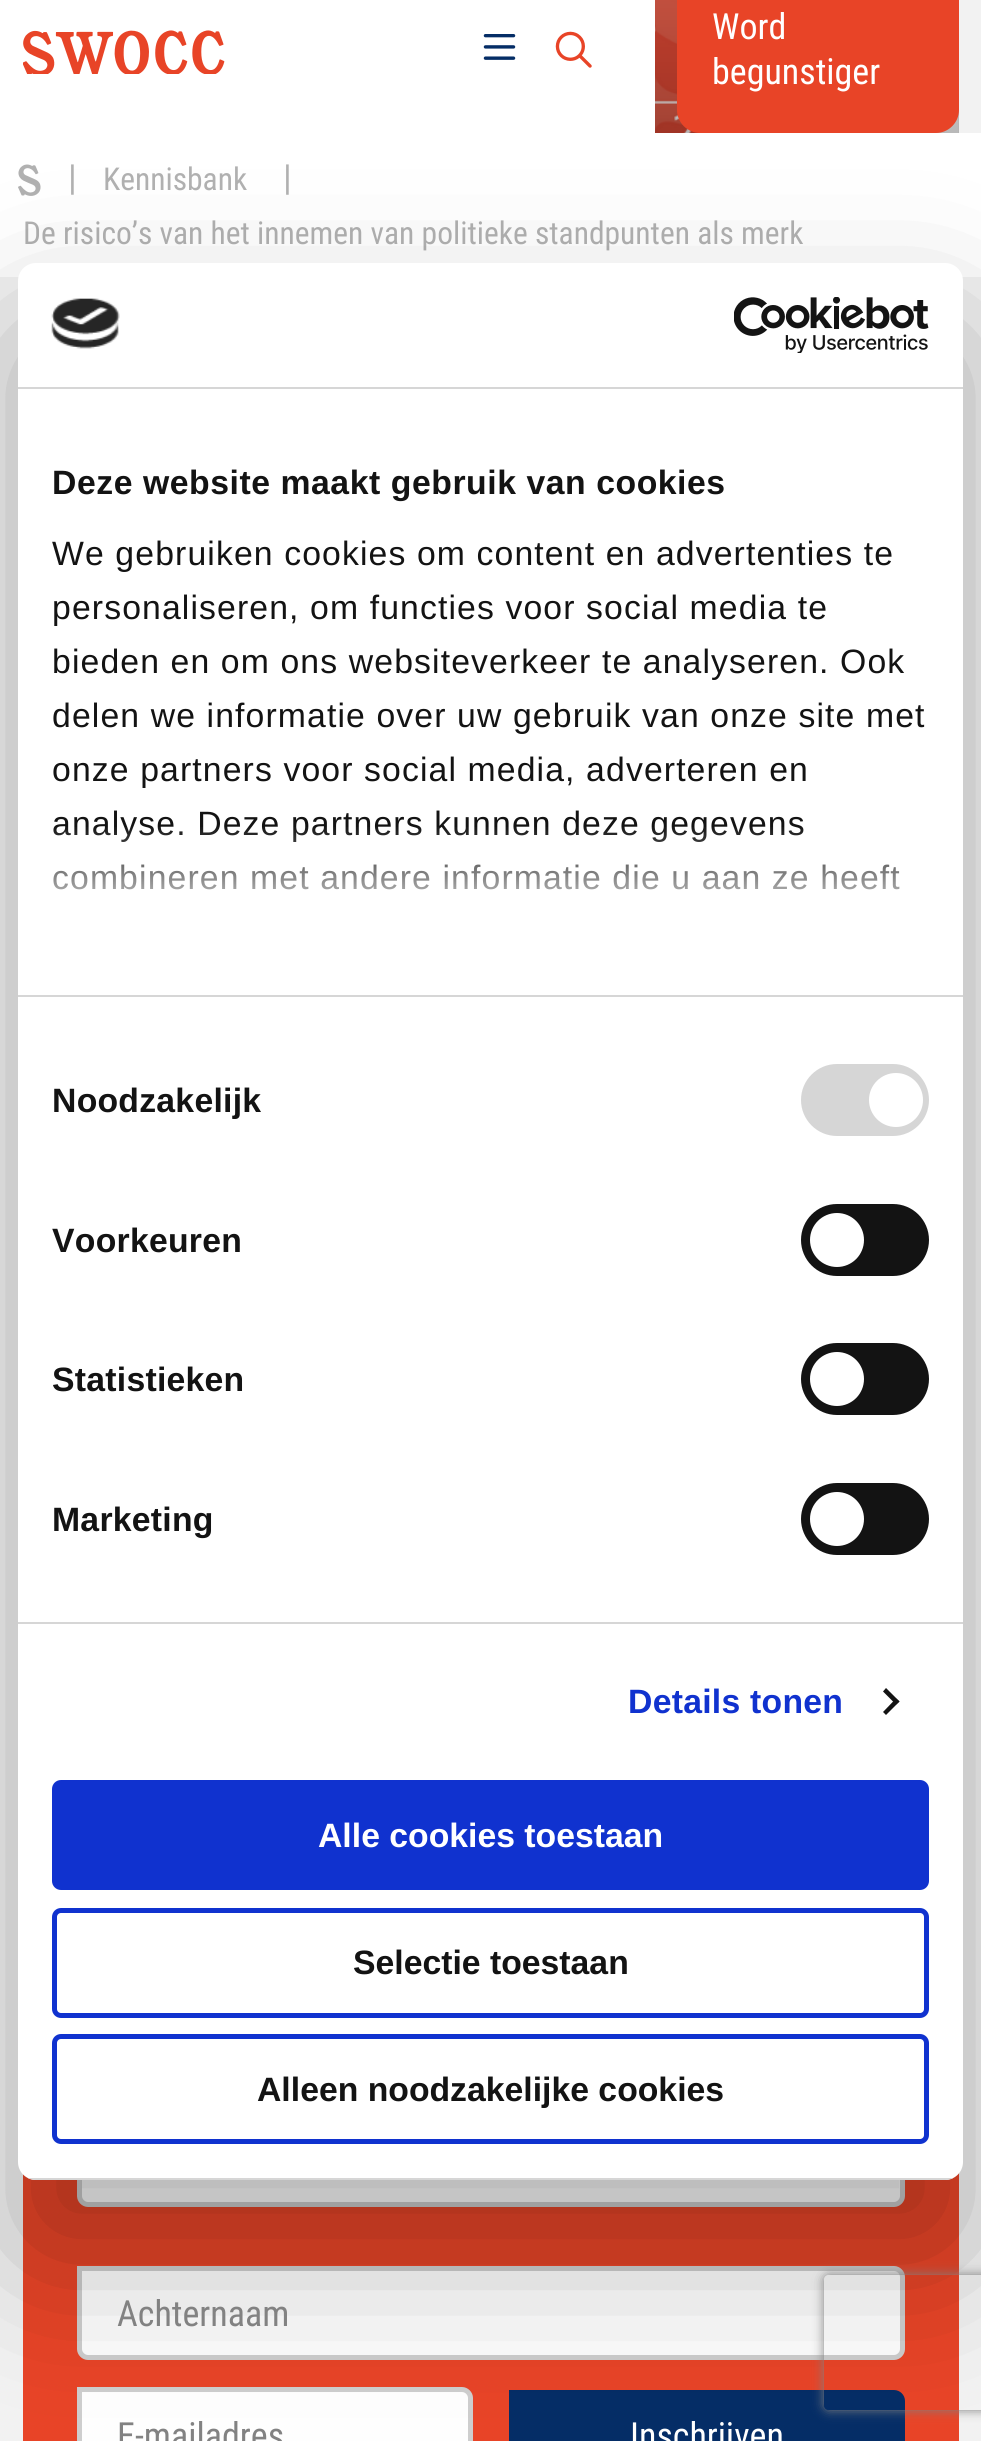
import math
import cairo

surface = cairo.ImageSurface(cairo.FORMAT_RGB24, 981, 2441)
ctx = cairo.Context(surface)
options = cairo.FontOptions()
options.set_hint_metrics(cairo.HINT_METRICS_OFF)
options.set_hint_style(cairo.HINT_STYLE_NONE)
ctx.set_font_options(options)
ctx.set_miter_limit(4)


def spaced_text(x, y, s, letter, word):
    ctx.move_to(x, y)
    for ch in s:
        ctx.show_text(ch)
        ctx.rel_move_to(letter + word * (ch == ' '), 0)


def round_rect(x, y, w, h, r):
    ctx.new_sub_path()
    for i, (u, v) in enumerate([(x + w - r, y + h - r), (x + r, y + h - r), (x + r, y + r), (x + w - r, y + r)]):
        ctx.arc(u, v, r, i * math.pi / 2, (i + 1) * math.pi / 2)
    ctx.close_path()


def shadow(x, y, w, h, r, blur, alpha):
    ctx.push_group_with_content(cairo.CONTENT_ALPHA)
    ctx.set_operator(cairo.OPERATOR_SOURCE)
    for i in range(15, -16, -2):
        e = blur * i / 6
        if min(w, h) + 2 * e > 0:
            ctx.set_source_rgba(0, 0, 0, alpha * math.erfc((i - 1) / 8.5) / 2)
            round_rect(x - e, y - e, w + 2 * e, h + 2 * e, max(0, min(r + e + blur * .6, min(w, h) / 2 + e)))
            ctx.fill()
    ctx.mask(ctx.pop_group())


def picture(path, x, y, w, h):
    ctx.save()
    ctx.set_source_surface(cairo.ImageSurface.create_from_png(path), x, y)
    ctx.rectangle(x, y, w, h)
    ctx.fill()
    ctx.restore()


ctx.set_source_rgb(0.949, 0.949, 0.949)
ctx.paint()
ctx.set_source_rgb(1, 1, 1)
ctx.rectangle(0, 0, 655, 133)
ctx.fill()
picture("img1.png", 23, 30, 202, 44)
picture("img2.png", 483, 34, 33, 26)
picture("img3.png", 555, 31, 37, 37)
picture("img7.png", 655, 0, 304, 133)
gradient = cairo.LinearGradient(490, -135, 491, 475)
gradient.add_color_stop_rgba(0, 0, 0, 0, 0)
gradient.add_color_stop_rgba(0.8, 0, 0, 0, 0.5)
ctx.set_source(gradient)
ctx.rectangle(655, 0, 304, 133)
ctx.fill()
ctx.set_source_rgb(0.91, 0.267, 0.153)
ctx.new_path()
ctx.move_to(677, -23)
ctx.line_to(936, -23)
ctx.curve_to(948.5, -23, 959, -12.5, 959, 0)
ctx.line_to(959, 110)
ctx.curve_to(959, 122.5, 948.5, 133, 936, 133)
ctx.line_to(700, 133)
ctx.curve_to(687.5, 133, 677, 122.5, 677, 110)
ctx.close_path()
ctx.fill()
ctx.select_font_face("Roboto Condensed")
ctx.set_font_size(36)
ctx.set_source_rgb(1, 1, 1)
ctx.move_to(712, 39)
ctx.show_text("Word")
ctx.move_to(712, 84)
ctx.show_text("begunstiger")
ctx.rectangle(0, 133, 981, 144)
ctx.fill()
picture("img4.png", 18, 164, 23, 32)
ctx.set_source_rgb(0.694, 0.694, 0.694)
ctx.move_to(68, 190)
ctx.show_text("|")
ctx.set_font_size(31.5)
ctx.move_to(103, 190)
ctx.show_text("Kennisbank")
ctx.set_font_size(36)
ctx.move_to(283, 190)
ctx.show_text("|")
ctx.set_font_size(31.5)
ctx.move_to(23, 244)
ctx.show_text("De risico’s van het innemen van politieke standpunten als merk")
ctx.set_source_rgb(0.91, 0.267, 0.153)
ctx.rectangle(23, 2173, 936, 268)
ctx.fill()
ctx.set_source_rgb(0.996, 0.996, 0.996)
ctx.new_path()
ctx.move_to(79.5, 2115.5)
ctx.line_to(894, 2115.5)
ctx.curve_to(898.5, 2115.5, 902.5, 2119.5, 902.5, 2124)
ctx.line_to(902.5, 2196)
ctx.curve_to(902.5, 2200.5, 898.5, 2204.5, 894, 2204.5)
ctx.line_to(88, 2204.5)
ctx.curve_to(83.5, 2204.5, 79.5, 2200.5, 79.5, 2196)
ctx.close_path()
ctx.fill_preserve()
ctx.set_source_rgb(0.808, 0.808, 0.808)
ctx.set_line_width(5)
ctx.stroke()
ctx.set_source_rgb(0.996, 0.996, 0.996)
ctx.new_path()
ctx.move_to(79.5, 2268.5)
ctx.line_to(894, 2268.5)
ctx.curve_to(898.5, 2268.5, 902.5, 2272.5, 902.5, 2277)
ctx.line_to(902.5, 2349)
ctx.curve_to(902.5, 2353.5, 898.5, 2357.5, 894, 2357.5)
ctx.line_to(88, 2357.5)
ctx.curve_to(83.5, 2357.5, 79.5, 2353.5, 79.5, 2349)
ctx.close_path()
ctx.fill_preserve()
ctx.set_source_rgb(0.808, 0.808, 0.808)
ctx.stroke()
ctx.set_source_rgb(0.996, 0.996, 0.996)
ctx.new_path()
ctx.move_to(79.5, 2389.5)
ctx.line_to(462, 2389.5)
ctx.curve_to(466.5, 2389.5, 470.5, 2393.5, 470.5, 2398)
ctx.line_to(470.5, 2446)
ctx.curve_to(470.5, 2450.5, 466.5, 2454.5, 462, 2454.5)
ctx.line_to(88, 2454.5)
ctx.curve_to(83.5, 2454.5, 79.5, 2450.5, 79.5, 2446)
ctx.close_path()
ctx.fill_preserve()
ctx.set_source_rgb(0.808, 0.808, 0.808)
ctx.stroke()
ctx.set_source_rgb(0.02, 0.176, 0.4)
ctx.new_path()
ctx.move_to(509, 2390)
ctx.line_to(894, 2390)
ctx.curve_to(900, 2390, 905, 2395, 905, 2401)
ctx.line_to(905, 2441)
ctx.curve_to(905, 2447, 900, 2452, 894, 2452)
ctx.line_to(520, 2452)
ctx.curve_to(514, 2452, 509, 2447, 509, 2441)
ctx.close_path()
ctx.fill()
ctx.set_source_rgb(0, 0, 0)
shadow(18, 335, 945, 1917, 18, 76.5, 0.3)
ctx.set_source_rgb(1, 1, 1)
round_rect(18, 263, 945, 1917, 18)
ctx.fill()
ctx.set_source_rgb(0.839, 0.839, 0.839)
ctx.rectangle(18, 387, 945, 2)
ctx.fill()
picture("img5.png", 51, 298, 69, 51)
picture("img6.png", 734, 297, 195, 56)
ctx.rectangle(18, 995, 945, 2)
ctx.fill()
ctx.select_font_face("Liberation Sans", cairo.FONT_SLANT_NORMAL, cairo.FONT_WEIGHT_BOLD)
ctx.set_font_size(33.75)
ctx.set_source_rgb(0.078, 0.078, 0.078)
spaced_text(52, 494, "Deze website maakt gebruik van cookies", 0.55, 0)
ctx.select_font_face("Liberation Sans")
spaced_text(52, 565, "We gebruiken cookies om content en advertenties te", 1.12, 0)
spaced_text(52, 619, "personaliseren, om functies voor social media te", 1.12, 0)
spaced_text(52, 673, "bieden en om ons websiteverkeer te analyseren. Ook", 1.12, 0)
spaced_text(52, 727, "delen we informatie over uw gebruik van onze site met", 1.12, 0)
spaced_text(52, 781, "onze partners voor social media, adverteren en", 1.12, 0)
spaced_text(52, 835, "analyse. Deze partners kunnen deze gegevens", 1.12, 0)
spaced_text(52, 889, "combineren met andere informatie die u aan ze heeft", 1.12, 0)
gradient = cairo.LinearGradient(476, 994, 476, 825)
gradient.add_color_stop_rgba(0, 1, 1, 1, 1)
gradient.add_color_stop_rgba(0.5, 1, 1, 1, 0.8)
gradient.add_color_stop_rgba(1, 1, 1, 1, 0)
ctx.set_source(gradient)
ctx.rectangle(53, 827, 847, 63)
ctx.fill()
ctx.set_source_rgb(0.839, 0.839, 0.839)
ctx.rectangle(18, 1622, 945, 2)
ctx.fill()
ctx.select_font_face("Liberation Sans", cairo.FONT_SLANT_NORMAL, cairo.FONT_WEIGHT_BOLD)
ctx.set_source_rgb(0.078, 0.078, 0.078)
spaced_text(52, 1112, "Noodzakelijk", 0.25, 0)
ctx.set_source_rgb(0.839, 0.839, 0.839)
round_rect(801, 1064, 128, 72, 36)
ctx.fill()
ctx.set_source_rgb(1, 1, 1)
ctx.arc(896, 1100, 27, 0, 2 * math.pi)
ctx.fill()
ctx.set_source_rgb(0.078, 0.078, 0.078)
spaced_text(52, 1252, "Voorkeuren", 0.25, 0)
round_rect(801, 1204, 128, 72, 36)
ctx.fill()
ctx.set_source_rgb(1, 1, 1)
ctx.arc(837, 1240, 27, 0, 2 * math.pi)
ctx.fill()
ctx.set_source_rgb(0.078, 0.078, 0.078)
spaced_text(52, 1391, "Statistieken", 0.25, 0)
round_rect(801, 1343, 128, 72, 36)
ctx.fill()
ctx.set_source_rgb(1, 1, 1)
ctx.arc(837, 1379, 27, 0, 2 * math.pi)
ctx.fill()
ctx.set_source_rgb(0.078, 0.078, 0.078)
spaced_text(52, 1531, "Marketing", 0.25, 0)
round_rect(801, 1483, 128, 72, 36)
ctx.fill()
ctx.set_source_rgb(1, 1, 1)
ctx.arc(837, 1519, 27, 0, 2 * math.pi)
ctx.fill()
ctx.set_source_rgb(0.063, 0.196, 0.812)
spaced_text(628, 1713, "Details tonen", 0.25, 0)
ctx.set_source_rgb(0.078, 0.078, 0.078)
ctx.new_path()
ctx.move_to(886, 1688)
ctx.line_to(899.5, 1701.5)
ctx.line_to(896, 1704.5)
ctx.line_to(883, 1691.5)
ctx.close_path()
ctx.fill()
ctx.new_path()
ctx.move_to(896, 1698.5)
ctx.line_to(899.5, 1701.5)
ctx.line_to(886, 1715)
ctx.line_to(883, 1712)
ctx.close_path()
ctx.fill()
ctx.save()
round_rect(18, 263, 945, 1917, 18)
ctx.clip()
ctx.set_source_rgb(0.839, 0.839, 0.839)
ctx.rectangle(28, 2178, 925, 2)
ctx.fill()
ctx.restore()
ctx.set_source_rgb(0.063, 0.196, 0.812)
round_rect(54.5, 1782.5, 872, 105, 6.5)
ctx.fill_preserve()
ctx.stroke()
ctx.set_source_rgb(1, 1, 1)
ctx.move_to(318, 1847)
ctx.show_text("Alle cookies toestaan")
round_rect(54.5, 1910.5, 872, 105, 6.5)
ctx.set_source_rgb(0.063, 0.196, 0.812)
ctx.stroke()
ctx.set_source_rgb(0.078, 0.078, 0.078)
ctx.move_to(353, 1974)
ctx.show_text("Selectie toestaan")
round_rect(54.5, 2036.5, 872, 105, 6.5)
ctx.set_source_rgb(0.063, 0.196, 0.812)
ctx.stroke()
ctx.set_source_rgb(0.078, 0.078, 0.078)
ctx.move_to(257, 2101)
ctx.show_text("Alleen noodzakelijke cookies")
ctx.select_font_face("Roboto Condensed")
ctx.set_font_size(36)
ctx.set_source_rgb(0.51, 0.51, 0.51)
ctx.move_to(117, 2326)
ctx.show_text("Achternaam")
ctx.move_to(117, 2448)
ctx.show_text("E-mailadres")
ctx.set_source_rgb(1, 1, 1)
ctx.move_to(630, 2448)
ctx.show_text("Inschrijven")
ctx.save()
ctx.set_fill_rule(cairo.FILL_RULE_EVEN_ODD)
ctx.new_path()
ctx.move_to(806, 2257)
ctx.line_to(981, 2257)
ctx.line_to(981, 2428)
ctx.line_to(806, 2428)
ctx.close_path()
ctx.move_to(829, 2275)
ctx.line_to(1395, 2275)
ctx.curve_to(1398, 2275, 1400, 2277, 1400, 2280)
ctx.line_to(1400, 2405)
ctx.curve_to(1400, 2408, 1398, 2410, 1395, 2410)
ctx.line_to(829, 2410)
ctx.curve_to(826, 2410, 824, 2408, 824, 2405)
ctx.line_to(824, 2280)
ctx.curve_to(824, 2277, 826, 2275, 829, 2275)
ctx.close_path()
ctx.clip()
ctx.set_source_rgb(0.502, 0.502, 0.502)
shadow(824, 2275, 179, 135, 5, 5.5, 1)
ctx.restore()
surface.write_to_png("page.png")
